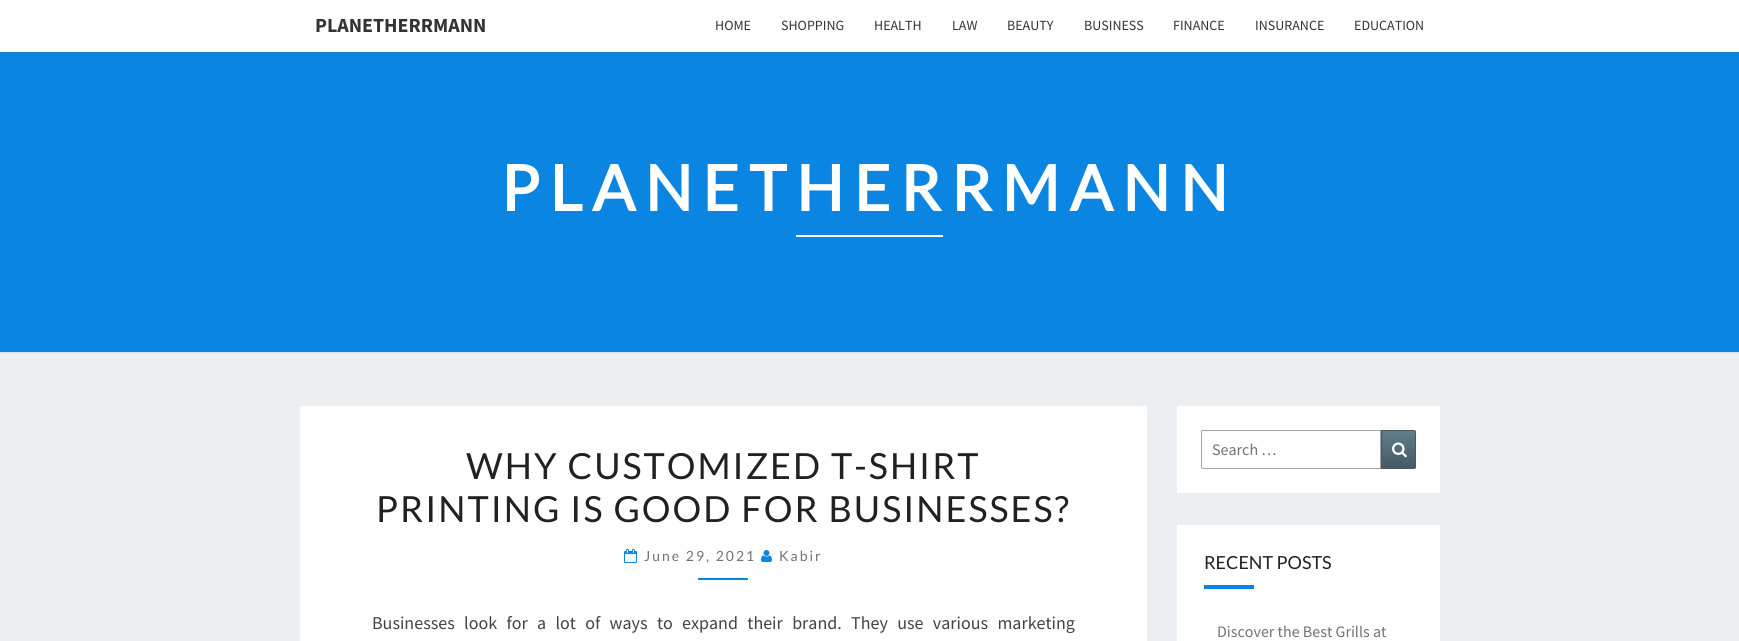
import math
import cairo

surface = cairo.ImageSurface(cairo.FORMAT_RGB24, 1739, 641)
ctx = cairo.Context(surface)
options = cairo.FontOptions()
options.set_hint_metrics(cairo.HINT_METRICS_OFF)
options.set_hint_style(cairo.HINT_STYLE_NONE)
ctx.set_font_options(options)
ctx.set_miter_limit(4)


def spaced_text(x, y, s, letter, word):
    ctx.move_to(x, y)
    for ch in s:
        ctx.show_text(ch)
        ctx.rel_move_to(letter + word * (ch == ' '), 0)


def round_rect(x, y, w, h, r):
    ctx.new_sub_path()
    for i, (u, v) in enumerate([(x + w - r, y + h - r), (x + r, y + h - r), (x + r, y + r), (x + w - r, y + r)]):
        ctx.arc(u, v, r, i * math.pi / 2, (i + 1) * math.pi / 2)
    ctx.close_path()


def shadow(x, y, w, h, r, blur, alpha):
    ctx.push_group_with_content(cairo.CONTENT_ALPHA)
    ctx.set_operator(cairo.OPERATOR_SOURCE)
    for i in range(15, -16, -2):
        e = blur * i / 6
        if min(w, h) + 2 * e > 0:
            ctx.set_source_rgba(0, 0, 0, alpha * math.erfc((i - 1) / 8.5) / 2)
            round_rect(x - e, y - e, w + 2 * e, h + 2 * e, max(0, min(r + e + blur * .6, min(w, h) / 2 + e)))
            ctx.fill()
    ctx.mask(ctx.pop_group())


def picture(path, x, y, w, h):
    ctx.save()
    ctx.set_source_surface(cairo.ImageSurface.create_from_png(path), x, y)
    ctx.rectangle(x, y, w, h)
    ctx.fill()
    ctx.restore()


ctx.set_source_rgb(0.925, 0.937, 0.945)
ctx.paint()
ctx.set_source_rgb(0.714, 0.714, 0.714)
shadow(-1, 51, 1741, 302, 0, 0.5, 0.3)
ctx.set_source_rgb(0.043, 0.522, 0.886)
ctx.rectangle(0, 52, 1739, 300)
ctx.fill()
ctx.set_source_rgb(0.392, 0.392, 0.392)
shadow(0, 1, 1739, 52, 0, 0.5, 0.2)
ctx.set_source_rgb(1, 1, 1)
ctx.rectangle(0, 0, 1739, 52)
ctx.fill()
ctx.select_font_face("Source Sans Pro", cairo.FONT_SLANT_NORMAL, cairo.FONT_WEIGHT_BOLD)
ctx.set_font_size(20)
ctx.set_source_rgb(0.2, 0.2, 0.2)
ctx.move_to(315, 32)
ctx.show_text("PLANETHERRMANN")
ctx.select_font_face("Source Sans Pro")
ctx.set_font_size(14)
ctx.move_to(715, 30)
ctx.show_text("HOME")
ctx.move_to(781, 30)
ctx.show_text("SHOPPING")
ctx.move_to(874, 30)
ctx.show_text("HEALTH")
ctx.move_to(952, 30)
ctx.show_text("LAW")
ctx.move_to(1007, 30)
ctx.show_text("BEAUTY")
ctx.move_to(1084, 30)
ctx.show_text("BUSINESS")
ctx.move_to(1173, 30)
ctx.show_text("FINANCE")
ctx.move_to(1255, 30)
ctx.show_text("INSURANCE")
ctx.move_to(1354, 30)
ctx.show_text("EDUCATION")
ctx.select_font_face("Lato", cairo.FONT_SLANT_NORMAL, cairo.FONT_WEIGHT_BOLD)
ctx.set_font_size(63)
ctx.set_source_rgb(1, 1, 1)
spaced_text(501, 211, "PLANETHERRMANN", 10, 0)
ctx.rectangle(796, 235, 147, 2)
ctx.fill()
ctx.rectangle(300, 406, 847, 235)
ctx.fill()
ctx.select_font_face("Lato")
ctx.set_font_size(36)
ctx.set_source_rgb(0.129, 0.129, 0.129)
spaced_text(466, 479, "WHY CUSTOMIZED T-SHIRT", 2, 0)
spaced_text(376, 522, "PRINTING IS GOOD FOR BUSINESSES?", 2, 0)
picture("img1.png", 624, 549, 13, 14)
ctx.set_font_size(14)
ctx.set_source_rgb(0.447, 0.447, 0.447)
spaced_text(644, 561, "June 29, 2021", 2, 0)
picture("img2.png", 761, 550, 11, 12)
spaced_text(779, 561, "Kabir", 2, 0)
ctx.set_source_rgb(0.043, 0.522, 0.886)
ctx.rectangle(698, 578, 50, 2)
ctx.fill()
ctx.select_font_face("Source Sans Pro")
ctx.set_font_size(18)
ctx.set_source_rgb(0.259, 0.259, 0.259)
spaced_text(372, 629, "Businesses look for a lot of ways to expand their brand. They use various marketing", 0, 5.75)
ctx.set_source_rgb(1, 1, 1)
ctx.rectangle(1177, 406, 263, 87)
ctx.fill()
ctx.new_path()
ctx.move_to(1203, 430.5)
ctx.line_to(1380.5, 430.5)
ctx.line_to(1380.5, 468.5)
ctx.line_to(1203, 468.5)
ctx.curve_to(1202, 468.5, 1201.5, 468, 1201.5, 467)
ctx.line_to(1201.5, 432)
ctx.curve_to(1201.5, 431, 1202, 430.5, 1203, 430.5)
ctx.close_path()
ctx.set_source_rgb(0.667, 0.631, 0.659)
ctx.set_line_width(1)
ctx.stroke()
ctx.set_font_size(16)
ctx.set_source_rgb(0.447, 0.447, 0.447)
ctx.move_to(1212, 455)
ctx.show_text("Search …")
gradient = cairo.LinearGradient(1399, 431, 1399, 468)
gradient.add_color_stop_rgba(0, 0.376, 0.49, 0.545, 1)
gradient.add_color_stop_rgba(1, 0.271, 0.353, 0.392, 1)
ctx.set_source(gradient)
ctx.rectangle(1382, 431, 34, 37)
ctx.fill()
ctx.new_path()
ctx.move_to(1381.5, 430.5)
ctx.line_to(1414, 430.5)
ctx.curve_to(1415, 430.5, 1415.5, 431, 1415.5, 432)
ctx.line_to(1415.5, 467)
ctx.curve_to(1415.5, 468, 1415, 468.5, 1414, 468.5)
ctx.line_to(1381.5, 468.5)
ctx.close_path()
ctx.set_source_rgb(0.271, 0.353, 0.392)
ctx.stroke()
picture("img3.png", 1392, 442, 15, 16)
ctx.set_source_rgb(1, 1, 1)
ctx.rectangle(1177, 525, 263, 116)
ctx.fill()
ctx.select_font_face("Lato")
ctx.set_font_size(18)
ctx.set_source_rgb(0.129, 0.129, 0.129)
ctx.move_to(1204, 569)
ctx.show_text("RECENT POSTS")
ctx.set_source_rgb(0.043, 0.522, 0.886)
ctx.rectangle(1204, 585, 50, 4)
ctx.fill()
ctx.select_font_face("Source Sans Pro")
ctx.set_font_size(16)
ctx.set_source_rgb(0.447, 0.447, 0.447)
ctx.move_to(1217, 637)
ctx.show_text("Discover the Best Grills at")
surface.write_to_png("page.png")
